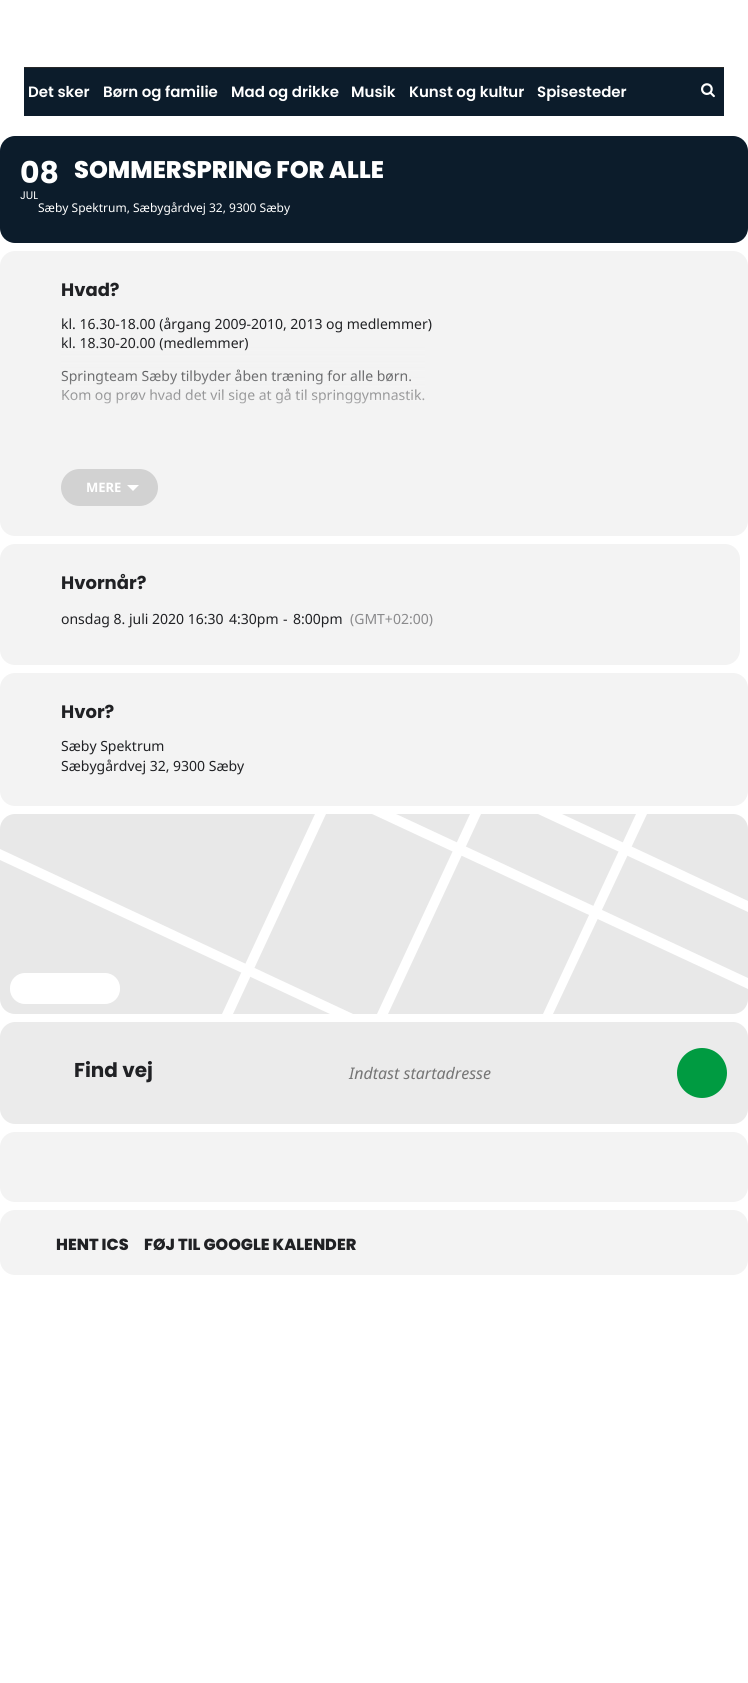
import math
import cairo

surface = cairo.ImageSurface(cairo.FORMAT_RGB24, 748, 1683)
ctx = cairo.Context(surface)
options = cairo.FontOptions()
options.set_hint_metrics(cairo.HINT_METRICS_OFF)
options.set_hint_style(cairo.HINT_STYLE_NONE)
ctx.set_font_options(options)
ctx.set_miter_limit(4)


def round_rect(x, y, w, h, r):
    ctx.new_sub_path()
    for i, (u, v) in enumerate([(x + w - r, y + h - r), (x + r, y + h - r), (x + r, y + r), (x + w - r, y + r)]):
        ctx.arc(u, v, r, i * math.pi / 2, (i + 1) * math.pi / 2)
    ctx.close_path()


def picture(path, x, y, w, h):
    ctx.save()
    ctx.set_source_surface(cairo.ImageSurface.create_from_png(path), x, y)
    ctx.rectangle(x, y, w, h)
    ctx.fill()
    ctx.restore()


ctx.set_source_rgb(1, 1, 1)
ctx.paint()
ctx.set_source_rgb(0.047, 0.11, 0.169)
ctx.rectangle(24, 68, 700, 48)
ctx.fill()
ctx.set_source_rgb(0.157, 0.157, 0.157)
ctx.rectangle(24, 67, 700, 1)
ctx.fill()
ctx.select_font_face("Poppins SemiBold")
ctx.set_font_size(15)
ctx.set_source_rgb(1, 1, 1)
ctx.move_to(28, 97)
ctx.show_text("Det sker")
ctx.move_to(103, 97)
ctx.show_text("Børn og familie")
ctx.move_to(231, 97)
ctx.show_text("Mad og drikke")
ctx.move_to(351, 97)
ctx.show_text("Musik")
ctx.move_to(409, 97)
ctx.show_text("Kunst og kultur")
ctx.move_to(537, 97)
ctx.show_text("Spisesteder")
picture("img1.png", 701, 83, 14, 15)
ctx.set_source_rgb(0.047, 0.11, 0.169)
round_rect(0, 136, 748, 107, 15)
ctx.fill()
ctx.select_font_face("Poppins", cairo.FONT_SLANT_NORMAL, cairo.FONT_WEIGHT_BOLD)
ctx.set_font_size(30)
ctx.set_source_rgb(1, 1, 1)
ctx.move_to(20, 183)
ctx.show_text("08")
ctx.select_font_face("Poppins")
ctx.set_font_size(11)
ctx.move_to(20, 199)
ctx.show_text("JUL")
ctx.select_font_face("Poppins ExtraBold")
ctx.set_font_size(24)
ctx.move_to(74, 178)
ctx.show_text("SOMMERSPRING FOR ALLE")
ctx.select_font_face("Noto Sans")
ctx.set_font_size(12)
ctx.move_to(38, 212)
ctx.show_text("Sæby Spektrum, Sæbygårdvej 32, 9300 Sæby")
ctx.set_source_rgb(0.953, 0.953, 0.953)
round_rect(0, 251, 748, 285, 15)
ctx.fill()
ctx.select_font_face("Poppins", cairo.FONT_SLANT_NORMAL, cairo.FONT_WEIGHT_BOLD)
ctx.set_font_size(18)
ctx.set_source_rgb(0.125, 0.129, 0.141)
ctx.move_to(61, 296)
ctx.show_text("Hvad?")
ctx.select_font_face("Noto Sans")
ctx.set_font_size(14)
ctx.move_to(61, 329)
ctx.show_text("kl. 16.30-18.00 (årgang 2009-2010, 2013 og medlemmer)")
ctx.move_to(61, 348)
ctx.show_text("kl. 18.30-20.00 (medlemmer)")
ctx.move_to(61, 381)
ctx.show_text("Springteam Sæby tilbyder åben træning for alle børn.")
ctx.move_to(61, 400)
ctx.show_text("Kom og prøv hvad det vil sige at gå til springgymnastik.")
gradient = cairo.LinearGradient(390, 464, 390, 314)
gradient.add_color_stop_rgba(0.2, 0.953, 0.953, 0.953, 1)
gradient.add_color_stop_rgba(0.8, 0.953, 0.953, 0.953, 0)
ctx.set_source(gradient)
ctx.rectangle(61, 346, 364, 58)
ctx.fill()
ctx.set_source_rgb(0.824, 0.824, 0.824)
round_rect(61, 469, 97, 37, 18.5)
ctx.fill()
ctx.select_font_face("Noto Sans", cairo.FONT_SLANT_NORMAL, cairo.FONT_WEIGHT_BOLD)
ctx.set_font_size(13)
ctx.set_source_rgb(1, 1, 1)
ctx.move_to(86, 492)
ctx.show_text("MERE")
ctx.new_path()
ctx.move_to(127, 485)
ctx.line_to(139, 485)
ctx.line_to(133, 491)
ctx.close_path()
ctx.fill()
ctx.set_source_rgb(0.953, 0.953, 0.953)
round_rect(0, 544, 740, 121, 15)
ctx.fill()
ctx.select_font_face("Poppins", cairo.FONT_SLANT_NORMAL, cairo.FONT_WEIGHT_BOLD)
ctx.set_font_size(18)
ctx.set_source_rgb(0.125, 0.129, 0.141)
ctx.move_to(61, 589)
ctx.show_text("Hvornår?")
ctx.select_font_face("Noto Sans")
ctx.set_font_size(14)
ctx.move_to(61, 624)
ctx.show_text("onsdag 8. juli 2020 16:30")
ctx.move_to(229, 624)
ctx.show_text("4:30pm")
ctx.move_to(283, 624)
ctx.show_text("-")
ctx.move_to(293, 624)
ctx.show_text("8:00pm")
ctx.set_source_rgb(0.541, 0.541, 0.549)
ctx.move_to(350, 624)
ctx.show_text("(GMT+02:00)")
ctx.set_source_rgb(0.953, 0.953, 0.953)
round_rect(0, 673, 748, 133, 15)
ctx.fill()
ctx.select_font_face("Poppins", cairo.FONT_SLANT_NORMAL, cairo.FONT_WEIGHT_BOLD)
ctx.set_font_size(18)
ctx.set_source_rgb(0.125, 0.129, 0.141)
ctx.move_to(61, 718)
ctx.show_text("Hvor?")
ctx.select_font_face("Noto Sans")
ctx.set_font_size(14)
ctx.move_to(61, 751)
ctx.show_text("Sæby Spektrum")
ctx.move_to(61, 771)
ctx.show_text("Sæbygårdvej 32, 9300 Sæby")
ctx.set_source_rgb(0.91, 0.91, 0.91)
round_rect(0, 814, 748, 200, 15)
ctx.fill()
ctx.set_source_rgb(1, 1, 1)
ctx.new_path()
ctx.move_to(222, 1014)
ctx.line_to(233, 1014)
ctx.line_to(326, 814)
ctx.line_to(315, 814)
ctx.close_path()
ctx.fill()
ctx.new_path()
ctx.move_to(748, 989)
ctx.line_to(748, 978)
ctx.line_to(396, 814)
ctx.line_to(372, 814)
ctx.close_path()
ctx.fill()
ctx.new_path()
ctx.move_to(481, 814)
ctx.line_to(470, 814)
ctx.line_to(377, 1014)
ctx.line_to(388, 1014)
ctx.close_path()
ctx.fill()
ctx.new_path()
ctx.move_to(748, 912)
ctx.line_to(748, 901)
ctx.line_to(562, 814)
ctx.line_to(538, 814)
ctx.close_path()
ctx.fill()
ctx.new_path()
ctx.move_to(0, 860)
ctx.line_to(330, 1014)
ctx.line_to(353, 1014)
ctx.line_to(0, 849)
ctx.close_path()
ctx.fill()
ctx.new_path()
ctx.move_to(543, 1014)
ctx.line_to(553, 1014)
ctx.line_to(647, 814)
ctx.line_to(636, 814)
ctx.close_path()
ctx.fill()
round_rect(10, 973, 110, 31, 15)
ctx.fill()
ctx.set_source_rgb(0.918, 0.918, 0.918)
ctx.new_path()
ctx.move_to(15, 1022)
ctx.line_to(733, 1022)
ctx.curve_to(741, 1022, 748, 1029, 748, 1037)
ctx.line_to(748, 1109)
ctx.curve_to(748, 1117, 741, 1124, 733, 1124)
ctx.line_to(15, 1124)
ctx.curve_to(7, 1124, 0, 1117, 0, 1109)
ctx.line_to(0, 1037)
ctx.curve_to(0, 1029, 7, 1022, 15, 1022)
ctx.close_path()
ctx.fill()
ctx.select_font_face("Poppins", cairo.FONT_SLANT_NORMAL, cairo.FONT_WEIGHT_BOLD)
ctx.set_font_size(20)
ctx.set_source_rgb(0.125, 0.129, 0.141)
ctx.move_to(74, 1077)
ctx.show_text("Find vej")
ctx.select_font_face("Noto Sans", cairo.FONT_SLANT_ITALIC)
ctx.set_font_size(16)
ctx.set_source_rgb(0.459, 0.459, 0.459)
ctx.move_to(349, 1079)
ctx.show_text("Indtast startadresse")
ctx.set_source_rgb(0, 0.608, 0.255)
ctx.new_path()
ctx.arc(702, 1073, 25, 0, 2 * math.pi)
ctx.fill()
ctx.set_source_rgb(0.953, 0.953, 0.953)
round_rect(0, 1132, 748, 70, 15)
ctx.fill()
round_rect(0, 1210, 748, 65, 15)
ctx.fill()
ctx.select_font_face("Poppins ExtraBold")
ctx.set_source_rgb(0.125, 0.129, 0.141)
ctx.move_to(56, 1250)
ctx.show_text("HENT ICS")
ctx.move_to(144, 1250)
ctx.show_text("FØJ TIL GOOGLE KALENDER")
surface.write_to_png("page.png")
